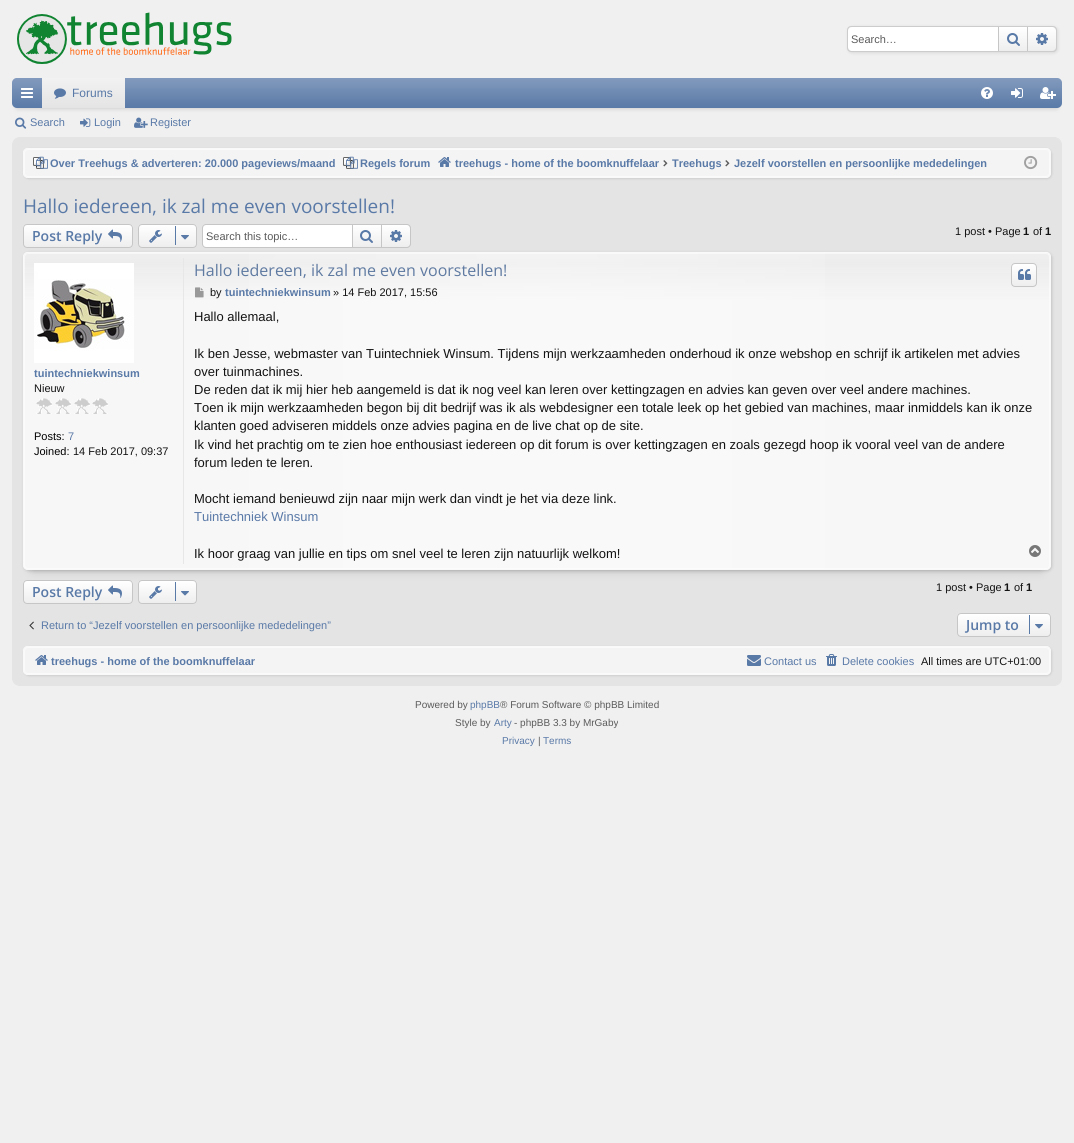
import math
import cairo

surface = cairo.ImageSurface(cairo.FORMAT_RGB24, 1074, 1143)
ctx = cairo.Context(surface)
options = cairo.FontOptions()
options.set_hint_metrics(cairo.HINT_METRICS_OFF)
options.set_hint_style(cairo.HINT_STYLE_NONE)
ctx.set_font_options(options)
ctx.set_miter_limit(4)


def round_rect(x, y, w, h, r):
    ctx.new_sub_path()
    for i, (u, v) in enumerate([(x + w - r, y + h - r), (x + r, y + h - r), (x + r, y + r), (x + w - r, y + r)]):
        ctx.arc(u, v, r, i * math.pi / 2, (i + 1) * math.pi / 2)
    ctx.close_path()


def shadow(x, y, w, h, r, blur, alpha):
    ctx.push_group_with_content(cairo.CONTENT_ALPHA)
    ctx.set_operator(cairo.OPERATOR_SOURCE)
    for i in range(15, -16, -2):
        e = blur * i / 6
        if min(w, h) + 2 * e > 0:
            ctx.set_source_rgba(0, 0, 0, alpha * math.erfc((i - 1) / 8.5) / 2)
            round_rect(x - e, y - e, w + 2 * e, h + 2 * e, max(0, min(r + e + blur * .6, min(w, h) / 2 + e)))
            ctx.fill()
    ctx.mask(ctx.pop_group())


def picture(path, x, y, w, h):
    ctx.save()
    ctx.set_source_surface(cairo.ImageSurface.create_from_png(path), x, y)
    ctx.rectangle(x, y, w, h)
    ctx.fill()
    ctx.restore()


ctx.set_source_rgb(0.941, 0.941, 0.941)
ctx.paint()
picture("img1.png", 17, 12, 215, 52)
ctx.set_source_rgb(0, 0, 0)
shadow(848, 27, 210, 26, 4, 1.5, 0.1)
round_rect(847.5, 26.5, 209, 25, 3.5)
ctx.set_source_rgb(0.8, 0.8, 0.8)
ctx.set_line_width(1)
ctx.stroke()
ctx.set_source_rgb(1, 1, 1)
ctx.new_path()
ctx.move_to(852, 27)
ctx.line_to(998, 27)
ctx.line_to(998, 51)
ctx.line_to(852, 51)
ctx.curve_to(850, 51, 848, 49, 848, 47)
ctx.line_to(848, 31)
ctx.curve_to(848, 29, 850, 27, 852, 27)
ctx.close_path()
ctx.fill()
ctx.select_font_face("Liberation Sans")
ctx.set_font_size(11)
ctx.set_source_rgb(0.357, 0.357, 0.357)
ctx.move_to(851, 43)
ctx.show_text("Search…")
gradient = cairo.LinearGradient(1013, 27, 1013, 51)
gradient.add_color_stop_rgba(0, 1, 1, 1, 1)
gradient.add_color_stop_rgba(1, 0.933, 0.933, 0.933, 1)
ctx.set_source(gradient)
ctx.rectangle(999, 27, 28, 24)
ctx.fill()
ctx.set_source_rgb(0.776, 0.776, 0.776)
ctx.rectangle(1027, 27, 1, 24)
ctx.fill()
ctx.rectangle(998, 27, 1, 24)
ctx.fill()
picture("img2.png", 1007, 33, 13, 13)
gradient = cairo.LinearGradient(1042, 27, 1042, 51)
gradient.add_color_stop_rgba(0, 1, 1, 1, 1)
gradient.add_color_stop_rgba(1, 0.933, 0.933, 0.933, 1)
ctx.set_source(gradient)
ctx.new_path()
ctx.move_to(1028, 27)
ctx.line_to(1052, 27)
ctx.curve_to(1054, 27, 1056, 29, 1056, 31)
ctx.line_to(1056, 47)
ctx.curve_to(1056, 49, 1054, 51, 1052, 51)
ctx.line_to(1028, 51)
ctx.close_path()
ctx.fill()
picture("img3.png", 1036, 33, 12, 12)
ctx.set_source_rgb(0, 0, 0)
shadow(17, 88, 1040, 20, 0, 2.5, 0.2)
ctx.set_source_rgb(0.349, 0.475, 0.655)
round_rect(12, 78, 1050, 30, 5)
ctx.fill()
gradient = cairo.LinearGradient(537, 78, 537, 108)
gradient.add_color_stop_rgba(0, 1, 1, 1, 0.25)
gradient.add_color_stop_rgba(1, 1, 1, 1, 0)
ctx.set_source(gradient)
round_rect(12, 78, 1050, 30, 5)
ctx.fill()
picture("img4.png", 21, 88, 12, 10)
gradient = cairo.LinearGradient(84, 78, 84, 108)
gradient.add_color_stop_rgba(0, 0.949, 0.949, 0.949, 1)
gradient.add_color_stop_rgba(1, 0.894, 0.894, 0.894, 1)
ctx.set_source(gradient)
ctx.rectangle(42, 78, 83, 30)
ctx.fill()
picture("img5.png", 54, 88, 12, 11)
ctx.set_font_size(12)
ctx.set_source_rgb(0.349, 0.475, 0.655)
ctx.move_to(72, 97)
ctx.show_text("Forums")
picture("img6.png", 981, 87, 12, 12)
picture("img7.png", 1011, 88, 12, 10)
picture("img8.png", 1040, 87, 16, 12)
picture("img9.png", 15, 117, 12, 12)
ctx.set_font_size(11)
ctx.move_to(30, 126)
ctx.show_text("Search")
picture("img10.png", 80, 118, 11, 9)
ctx.move_to(94, 126)
ctx.show_text("Login")
picture("img11.png", 134, 117, 14, 11)
ctx.move_to(150, 126)
ctx.show_text("Register")
ctx.set_source_rgb(0.894, 0.894, 0.894)
round_rect(12.5, 137.5, 1049, 548, 7.5)
ctx.fill_preserve()
ctx.stroke()
ctx.set_source_rgb(0, 0, 0)
shadow(24, 149, 1028, 30, 5, 1, 0.1)
ctx.set_source_rgb(0.957, 0.957, 0.957)
round_rect(23, 148, 1028, 30, 5)
ctx.fill()
round_rect(24.5, 149.5, 1025, 27, 3.5)
ctx.set_source_rgb(0.98, 0.98, 0.98)
ctx.stroke()
round_rect(23.5, 148.5, 1027, 29, 4.5)
ctx.set_source_rgb(0.976, 0.976, 0.976)
ctx.stroke()
picture("img12.png", 33, 157, 11, 12)
picture("img13.png", 36, 156, 12, 13)
ctx.select_font_face("Liberation Sans", cairo.FONT_SLANT_NORMAL, cairo.FONT_WEIGHT_BOLD)
ctx.set_source_rgb(0.349, 0.475, 0.655)
ctx.move_to(50, 167)
ctx.show_text("Over Treehugs & adverteren: 20.000 pageviews/maand")
picture("img12.png", 343, 157, 11, 12)
picture("img13.png", 346, 156, 12, 13)
ctx.move_to(360, 167)
ctx.show_text("Regels forum")
picture("img14.png", 438, 157, 13, 10)
ctx.move_to(455, 167)
ctx.show_text("treehugs - home of the boomknuffelaar")
picture("img15.png", 663, 160, 5, 7)
ctx.move_to(672, 167)
ctx.show_text("Treehugs")
picture("img15.png", 725, 160, 5, 7)
ctx.move_to(734, 167)
ctx.show_text("Jezelf voorstellen en persoonlijke mededelingen")
picture("img16.png", 1024, 155, 14, 15)
ctx.select_font_face("Open Sans")
ctx.set_font_size(19)
ctx.move_to(23, 213)
ctx.show_text("Hallo iedereen, ik zal me even voorstellen!")
ctx.set_source_rgb(0.933, 0.933, 0.933)
round_rect(23, 224, 110, 24, 4)
ctx.fill()
ctx.save()
round_rect(23, 224, 110, 24, 4)
ctx.clip()
gradient = cairo.LinearGradient(78, 225, 78, 247)
gradient.add_color_stop_rgba(0, 1, 1, 1, 1)
gradient.add_color_stop_rgba(1, 1, 1, 1, 0)
ctx.set_source(gradient)
ctx.rectangle(23, 225, 110, 22)
ctx.fill()
ctx.restore()
round_rect(23.5, 224.5, 109, 23, 3.5)
ctx.set_source_rgb(0.776, 0.776, 0.776)
ctx.stroke()
ctx.select_font_face("Open Sans SemiBold")
ctx.set_font_size(14)
ctx.set_source_rgb(0.349, 0.475, 0.655)
ctx.move_to(32, 241)
ctx.show_text("Post Reply")
picture("img17.png", 108, 229, 14, 13)
ctx.set_source_rgb(0.933, 0.933, 0.933)
round_rect(138, 224, 59, 24, 4)
ctx.fill()
ctx.save()
round_rect(138, 224, 59, 24, 4)
ctx.clip()
gradient = cairo.LinearGradient(168, 225, 168, 247)
gradient.add_color_stop_rgba(0, 1, 1, 1, 1)
gradient.add_color_stop_rgba(1, 1, 1, 1, 0)
ctx.set_source(gradient)
ctx.rectangle(138, 225, 59, 22)
ctx.fill()
ctx.restore()
round_rect(138.5, 224.5, 58, 23, 3.5)
ctx.set_source_rgb(0.776, 0.776, 0.776)
ctx.stroke()
picture("img18.png", 149, 230, 13, 13)
ctx.set_source_rgb(0.349, 0.475, 0.655)
ctx.rectangle(175, 226, 1, 19)
ctx.fill()
picture("img19.png", 181, 235, 8, 5)
ctx.set_source_rgb(1, 1, 1)
ctx.new_path()
ctx.move_to(206, 225)
ctx.line_to(352, 225)
ctx.line_to(352, 247)
ctx.line_to(206, 247)
ctx.curve_to(204.5, 247, 203, 245.5, 203, 244)
ctx.line_to(203, 228)
ctx.curve_to(203, 226.5, 204.5, 225, 206, 225)
ctx.close_path()
ctx.fill()
ctx.set_source_rgb(0.776, 0.776, 0.776)
ctx.set_fill_rule(cairo.FILL_RULE_EVEN_ODD)
ctx.new_path()
ctx.move_to(206, 224)
ctx.line_to(352, 224)
ctx.line_to(352, 248)
ctx.line_to(206, 248)
ctx.curve_to(204, 248, 202, 246, 202, 244)
ctx.line_to(202, 228)
ctx.curve_to(202, 226, 204, 224, 206, 224)
ctx.close_path()
ctx.move_to(206, 225)
ctx.line_to(352, 225)
ctx.line_to(352, 247)
ctx.line_to(206, 247)
ctx.curve_to(204, 247, 203, 246, 203, 244)
ctx.line_to(203, 228)
ctx.curve_to(203, 226, 204, 225, 206, 225)
ctx.close_path()
ctx.fill()
ctx.select_font_face("Liberation Sans")
ctx.set_font_size(11)
ctx.set_source_rgb(0.357, 0.357, 0.357)
ctx.move_to(206, 240)
ctx.show_text("Search this topic…")
gradient = cairo.LinearGradient(367, 225, 367, 247)
gradient.add_color_stop_rgba(0, 1, 1, 1, 1)
gradient.add_color_stop_rgba(1, 0.933, 0.933, 0.933, 1)
ctx.set_source(gradient)
ctx.rectangle(353, 225, 28, 22)
ctx.fill()
ctx.rectangle(352.5, 224.5, 29, 23)
ctx.set_source_rgb(0.776, 0.776, 0.776)
ctx.stroke()
picture("img20.png", 360, 230, 13, 13)
ctx.set_source_rgb(0.933, 0.933, 0.933)
ctx.new_path()
ctx.move_to(382, 225)
ctx.line_to(407, 225)
ctx.curve_to(408.5, 225, 410, 226.5, 410, 228)
ctx.line_to(410, 244)
ctx.curve_to(410, 245.5, 408.5, 247, 407, 247)
ctx.line_to(382, 247)
ctx.close_path()
ctx.fill()
gradient = cairo.LinearGradient(396, 225, 396, 247)
gradient.add_color_stop_rgba(0, 1, 1, 1, 1)
gradient.add_color_stop_rgba(1, 1, 1, 1, 0)
ctx.set_source(gradient)
ctx.new_path()
ctx.move_to(382, 225)
ctx.line_to(407, 225)
ctx.curve_to(408.5, 225, 410, 226.5, 410, 228)
ctx.line_to(410, 244)
ctx.curve_to(410, 245.5, 408.5, 247, 407, 247)
ctx.line_to(382, 247)
ctx.close_path()
ctx.fill()
ctx.set_source_rgb(0.776, 0.776, 0.776)
ctx.new_path()
ctx.move_to(382, 224)
ctx.line_to(407, 224)
ctx.curve_to(409, 224, 411, 226, 411, 228)
ctx.line_to(411, 244)
ctx.curve_to(411, 246, 409, 248, 407, 248)
ctx.line_to(382, 248)
ctx.close_path()
ctx.move_to(382, 225)
ctx.line_to(407, 225)
ctx.curve_to(408.5, 225, 410, 226.5, 410, 228)
ctx.line_to(410, 244)
ctx.curve_to(410, 245.5, 408.5, 247, 407, 247)
ctx.line_to(382, 247)
ctx.close_path()
ctx.fill()
picture("img21.png", 390, 230, 12, 12)
ctx.set_source_rgb(0.078, 0.078, 0.078)
ctx.move_to(955, 235)
ctx.show_text("1 post • Page")
ctx.select_font_face("Liberation Sans", cairo.FONT_SLANT_NORMAL, cairo.FONT_WEIGHT_BOLD)
ctx.move_to(1023, 235)
ctx.show_text("1")
ctx.select_font_face("Liberation Sans")
ctx.move_to(1033, 235)
ctx.show_text("of")
ctx.select_font_face("Liberation Sans", cairo.FONT_SLANT_NORMAL, cairo.FONT_WEIGHT_BOLD)
ctx.move_to(1045, 235)
ctx.show_text("1")
ctx.set_source_rgb(0.933, 0.933, 0.933)
round_rect(23, 580, 110, 24, 4)
ctx.fill()
ctx.save()
ctx.set_fill_rule(cairo.FILL_RULE_WINDING)
round_rect(23, 580, 110, 24, 4)
ctx.clip()
gradient = cairo.LinearGradient(78, 581, 78, 603)
gradient.add_color_stop_rgba(0, 1, 1, 1, 1)
gradient.add_color_stop_rgba(1, 1, 1, 1, 0)
ctx.set_source(gradient)
ctx.rectangle(23, 581, 110, 22)
ctx.fill()
ctx.restore()
round_rect(23.5, 580.5, 109, 23, 3.5)
ctx.set_source_rgb(0.776, 0.776, 0.776)
ctx.stroke()
picture("img17.png", 108, 585, 14, 13)
ctx.set_source_rgb(0, 0, 0)
shadow(33, 272, 1008, 298, 0, 5, 0.2)
shadow(24, 253, 1028, 318, 5, 1.5, 0.15)
ctx.set_source_rgb(0.965, 0.965, 0.965)
round_rect(23, 252, 1028, 318, 5)
ctx.fill()
ctx.save()
ctx.set_fill_rule(cairo.FILL_RULE_WINDING)
round_rect(23, 252, 1028, 318, 5)
ctx.clip()
gradient = cairo.LinearGradient(537, 253, 537, 569)
gradient.add_color_stop_rgba(0, 0.8, 0.8, 0.8, 0.2)
gradient.add_color_stop_rgba(0.03, 0.8, 0.8, 0.8, 0.25)
gradient.add_color_stop_rgba(0.16, 0.8, 0.8, 0.8, 0)
ctx.set_source(gradient)
ctx.rectangle(23, 253, 1028, 47)
ctx.fill()
ctx.restore()
gradient = cairo.LinearGradient(24, 411, 1050, 411)
gradient.add_color_stop_rgba(0, 1, 1, 1, 0)
gradient.add_color_stop_rgba(0.5, 1, 1, 1, 0.3)
gradient.add_color_stop_rgba(1, 1, 1, 1, 0)
ctx.set_source(gradient)
ctx.rectangle(249, 253, 576, 316)
ctx.fill()
round_rect(24.5, 253.5, 1025, 315, 3.5)
ctx.set_source_rgba(1, 1, 1, 0.5)
ctx.stroke()
round_rect(23.5, 252.5, 1027, 317, 4.5)
ctx.set_source_rgb(0.976, 0.976, 0.976)
ctx.stroke()
ctx.set_source_rgb(0.906, 0.906, 0.906)
ctx.rectangle(183, 258, 1, 306)
ctx.fill()
picture("img22.png", 34, 263, 100, 100)
ctx.set_source_rgb(0.349, 0.475, 0.655)
ctx.move_to(34, 377)
ctx.show_text("tuintechniekwinsum")
ctx.select_font_face("Liberation Sans")
ctx.set_source_rgb(0.078, 0.078, 0.078)
ctx.move_to(34, 392)
ctx.show_text("Nieuw")
picture("img23.png", 36, 398, 72, 16)
ctx.set_source_rgb(0, 0, 0)
ctx.move_to(34, 440)
ctx.show_text("Posts:")
ctx.set_source_rgb(0.349, 0.475, 0.655)
ctx.move_to(68, 440)
ctx.show_text("7")
ctx.set_source_rgb(0, 0, 0)
ctx.move_to(34, 455)
ctx.show_text("Joined:")
ctx.set_source_rgb(0.078, 0.078, 0.078)
ctx.move_to(73, 455)
ctx.show_text("14 Feb 2017, 09:37")
ctx.select_font_face("Open Sans")
ctx.set_font_size(16)
ctx.set_source_rgb(0.373, 0.478, 0.631)
ctx.move_to(194, 276)
ctx.show_text("Hallo iedereen, ik zal me even voorstellen!")
ctx.save()
ctx.set_fill_rule(cairo.FILL_RULE_WINDING)
round_rect(1011, 263, 26, 24, 4)
ctx.clip()
gradient = cairo.LinearGradient(1024, 264, 1024, 286)
gradient.add_color_stop_rgba(0, 1, 1, 1, 1)
gradient.add_color_stop_rgba(1, 0.933, 0.933, 0.933, 1)
ctx.set_source(gradient)
ctx.rectangle(1011, 264, 26, 22)
ctx.fill()
ctx.restore()
round_rect(1011.5, 263.5, 25, 23, 3.5)
ctx.set_source_rgb(0.776, 0.776, 0.776)
ctx.stroke()
picture("img24.png", 1018, 269, 13, 11)
picture("img25.png", 195, 287, 9, 11)
ctx.select_font_face("Liberation Sans")
ctx.set_font_size(11)
ctx.set_source_rgb(0.078, 0.078, 0.078)
ctx.move_to(210, 296)
ctx.show_text("by")
ctx.select_font_face("Liberation Sans", cairo.FONT_SLANT_NORMAL, cairo.FONT_WEIGHT_BOLD)
ctx.set_source_rgb(0.349, 0.475, 0.655)
ctx.move_to(225, 296)
ctx.show_text("tuintechniekwinsum")
ctx.select_font_face("Liberation Sans")
ctx.set_source_rgb(0.078, 0.078, 0.078)
ctx.move_to(333, 296)
ctx.show_text("» 14 Feb 2017, 15:56")
ctx.set_font_size(13)
ctx.move_to(194, 321)
ctx.show_text("Hallo allemaal,")
ctx.move_to(194, 358)
ctx.show_text("Ik ben Jesse, webmaster van Tuintechniek Winsum. Tijdens mijn werkzaamheden onderhoud ik onze webshop en schrijf ik artikelen met advies")
ctx.move_to(194, 376)
ctx.show_text("over tuinmachines.")
ctx.move_to(194, 394)
ctx.show_text("De reden dat ik mij hier heb aangemeld is dat ik nog veel kan leren over kettingzagen en advies kan geven over veel andere machines.")
ctx.move_to(194, 412)
ctx.show_text("Toen ik mijn werkzaamheden begon bij dit bedrijf was ik als webdesigner een totale leek op het gebied van machines, maar inmiddels kan ik onze")
ctx.move_to(194, 430)
ctx.show_text("klanten goed adviseren middels onze advies pagina en de live chat op de site.")
ctx.move_to(194, 449)
ctx.show_text("Ik vind het prachtig om te zien hoe enthousiast iedereen op dit forum is over kettingzagen en zoals gezegd hoop ik vooral veel van de andere")
ctx.move_to(194, 467)
ctx.show_text("forum leden te leren.")
ctx.move_to(194, 503)
ctx.show_text("Mocht iemand benieuwd zijn naar mijn werk dan vindt je het via deze link.")
ctx.set_source_rgb(0.349, 0.475, 0.655)
ctx.move_to(194, 521)
ctx.show_text("Tuintechniek Winsum")
ctx.set_source_rgb(0.078, 0.078, 0.078)
ctx.move_to(194, 558)
ctx.show_text("Ik hoor graag van jullie en tips om snel veel te leren zijn natuurlijk welkom!")
picture("img26.png", 1029, 545, 12, 12)
ctx.select_font_face("Open Sans SemiBold")
ctx.set_font_size(14)
ctx.set_source_rgb(0.349, 0.475, 0.655)
ctx.move_to(32, 597)
ctx.show_text("Post Reply")
ctx.set_source_rgb(0.933, 0.933, 0.933)
round_rect(138, 580, 59, 24, 4)
ctx.fill()
ctx.save()
ctx.set_fill_rule(cairo.FILL_RULE_WINDING)
round_rect(138, 580, 59, 24, 4)
ctx.clip()
gradient = cairo.LinearGradient(168, 581, 168, 603)
gradient.add_color_stop_rgba(0, 1, 1, 1, 1)
gradient.add_color_stop_rgba(1, 1, 1, 1, 0)
ctx.set_source(gradient)
ctx.rectangle(138, 581, 59, 22)
ctx.fill()
ctx.restore()
round_rect(138.5, 580.5, 58, 23, 3.5)
ctx.set_source_rgb(0.776, 0.776, 0.776)
ctx.stroke()
picture("img18.png", 149, 586, 13, 13)
ctx.set_source_rgb(0.349, 0.475, 0.655)
ctx.rectangle(175, 582, 1, 19)
ctx.fill()
picture("img19.png", 181, 591, 8, 5)
ctx.select_font_face("Liberation Sans")
ctx.set_font_size(11)
ctx.set_source_rgb(0.078, 0.078, 0.078)
ctx.move_to(936, 591)
ctx.show_text("1 post • Page")
ctx.select_font_face("Liberation Sans", cairo.FONT_SLANT_NORMAL, cairo.FONT_WEIGHT_BOLD)
ctx.move_to(1004, 591)
ctx.show_text("1")
ctx.select_font_face("Liberation Sans")
ctx.move_to(1014, 591)
ctx.show_text("of")
ctx.select_font_face("Liberation Sans", cairo.FONT_SLANT_NORMAL, cairo.FONT_WEIGHT_BOLD)
ctx.move_to(1026, 591)
ctx.show_text("1")
picture("img27.png", 29, 621, 5, 9)
ctx.select_font_face("Liberation Sans")
ctx.set_source_rgb(0.349, 0.475, 0.655)
ctx.move_to(41, 629)
ctx.show_text("Return to “Jezelf voorstellen en persoonlijke mededelingen”")
ctx.set_source_rgb(0.933, 0.933, 0.933)
round_rect(957, 613, 94, 24, 4)
ctx.fill()
ctx.save()
ctx.set_fill_rule(cairo.FILL_RULE_WINDING)
round_rect(957, 613, 94, 24, 4)
ctx.clip()
gradient = cairo.LinearGradient(1004, 614, 1004, 636)
gradient.add_color_stop_rgba(0, 1, 1, 1, 1)
gradient.add_color_stop_rgba(1, 1, 1, 1, 0)
ctx.set_source(gradient)
ctx.rectangle(957, 614, 94, 22)
ctx.fill()
ctx.restore()
round_rect(957.5, 613.5, 93, 23, 3.5)
ctx.set_source_rgb(0.776, 0.776, 0.776)
ctx.stroke()
ctx.select_font_face("Open Sans SemiBold")
ctx.set_font_size(14)
ctx.set_source_rgb(0.349, 0.475, 0.655)
ctx.move_to(966, 630)
ctx.show_text("Jump to")
ctx.rectangle(1029, 615, 1, 19)
ctx.fill()
picture("img19.png", 1035, 624, 8, 5)
ctx.set_source_rgb(0, 0, 0)
shadow(24, 647, 1028, 29, 5, 1, 0.1)
ctx.set_source_rgb(0.957, 0.957, 0.957)
round_rect(23, 646, 1028, 29, 5)
ctx.fill()
round_rect(24.5, 647.5, 1025, 26, 3.5)
ctx.set_source_rgb(0.98, 0.98, 0.98)
ctx.stroke()
round_rect(23.5, 646.5, 1027, 28, 4.5)
ctx.set_source_rgb(0.976, 0.976, 0.976)
ctx.stroke()
picture("img14.png", 35, 655, 13, 10)
ctx.select_font_face("Liberation Sans", cairo.FONT_SLANT_NORMAL, cairo.FONT_WEIGHT_BOLD)
ctx.set_font_size(11)
ctx.set_source_rgb(0.349, 0.475, 0.655)
ctx.move_to(51, 665)
ctx.show_text("treehugs - home of the boomknuffelaar")
picture("img28.png", 747, 655, 14, 11)
ctx.select_font_face("Liberation Sans")
ctx.move_to(764, 665)
ctx.show_text("Contact us")
picture("img29.png", 826, 654, 11, 12)
ctx.move_to(842, 665)
ctx.show_text("Delete cookies")
ctx.set_source_rgb(0.078, 0.078, 0.078)
ctx.move_to(921, 665)
ctx.show_text("All times are UTC+01:00")
ctx.set_font_size(10)
ctx.set_source_rgb(0.357, 0.357, 0.357)
ctx.move_to(415, 708)
ctx.show_text("Powered by")
ctx.set_source_rgb(0.349, 0.475, 0.655)
ctx.move_to(470, 708)
ctx.show_text("phpBB")
ctx.set_source_rgb(0.357, 0.357, 0.357)
ctx.move_to(500, 708)
ctx.show_text("® Forum Software © phpBB Limited")
ctx.move_to(455, 726)
ctx.show_text("Style by")
ctx.set_source_rgb(0.349, 0.475, 0.655)
ctx.move_to(494, 726)
ctx.show_text("Arty")
ctx.set_source_rgb(0.357, 0.357, 0.357)
ctx.move_to(514, 726)
ctx.show_text("- phpBB 3.3 by MrGaby")
ctx.set_source_rgb(0.349, 0.475, 0.655)
ctx.move_to(502, 744)
ctx.show_text("Privacy")
ctx.set_source_rgb(0.357, 0.357, 0.357)
ctx.move_to(538, 744)
ctx.show_text("|")
ctx.set_source_rgb(0.349, 0.475, 0.655)
ctx.move_to(543, 744)
ctx.show_text("Terms")
surface.write_to_png("page.png")
